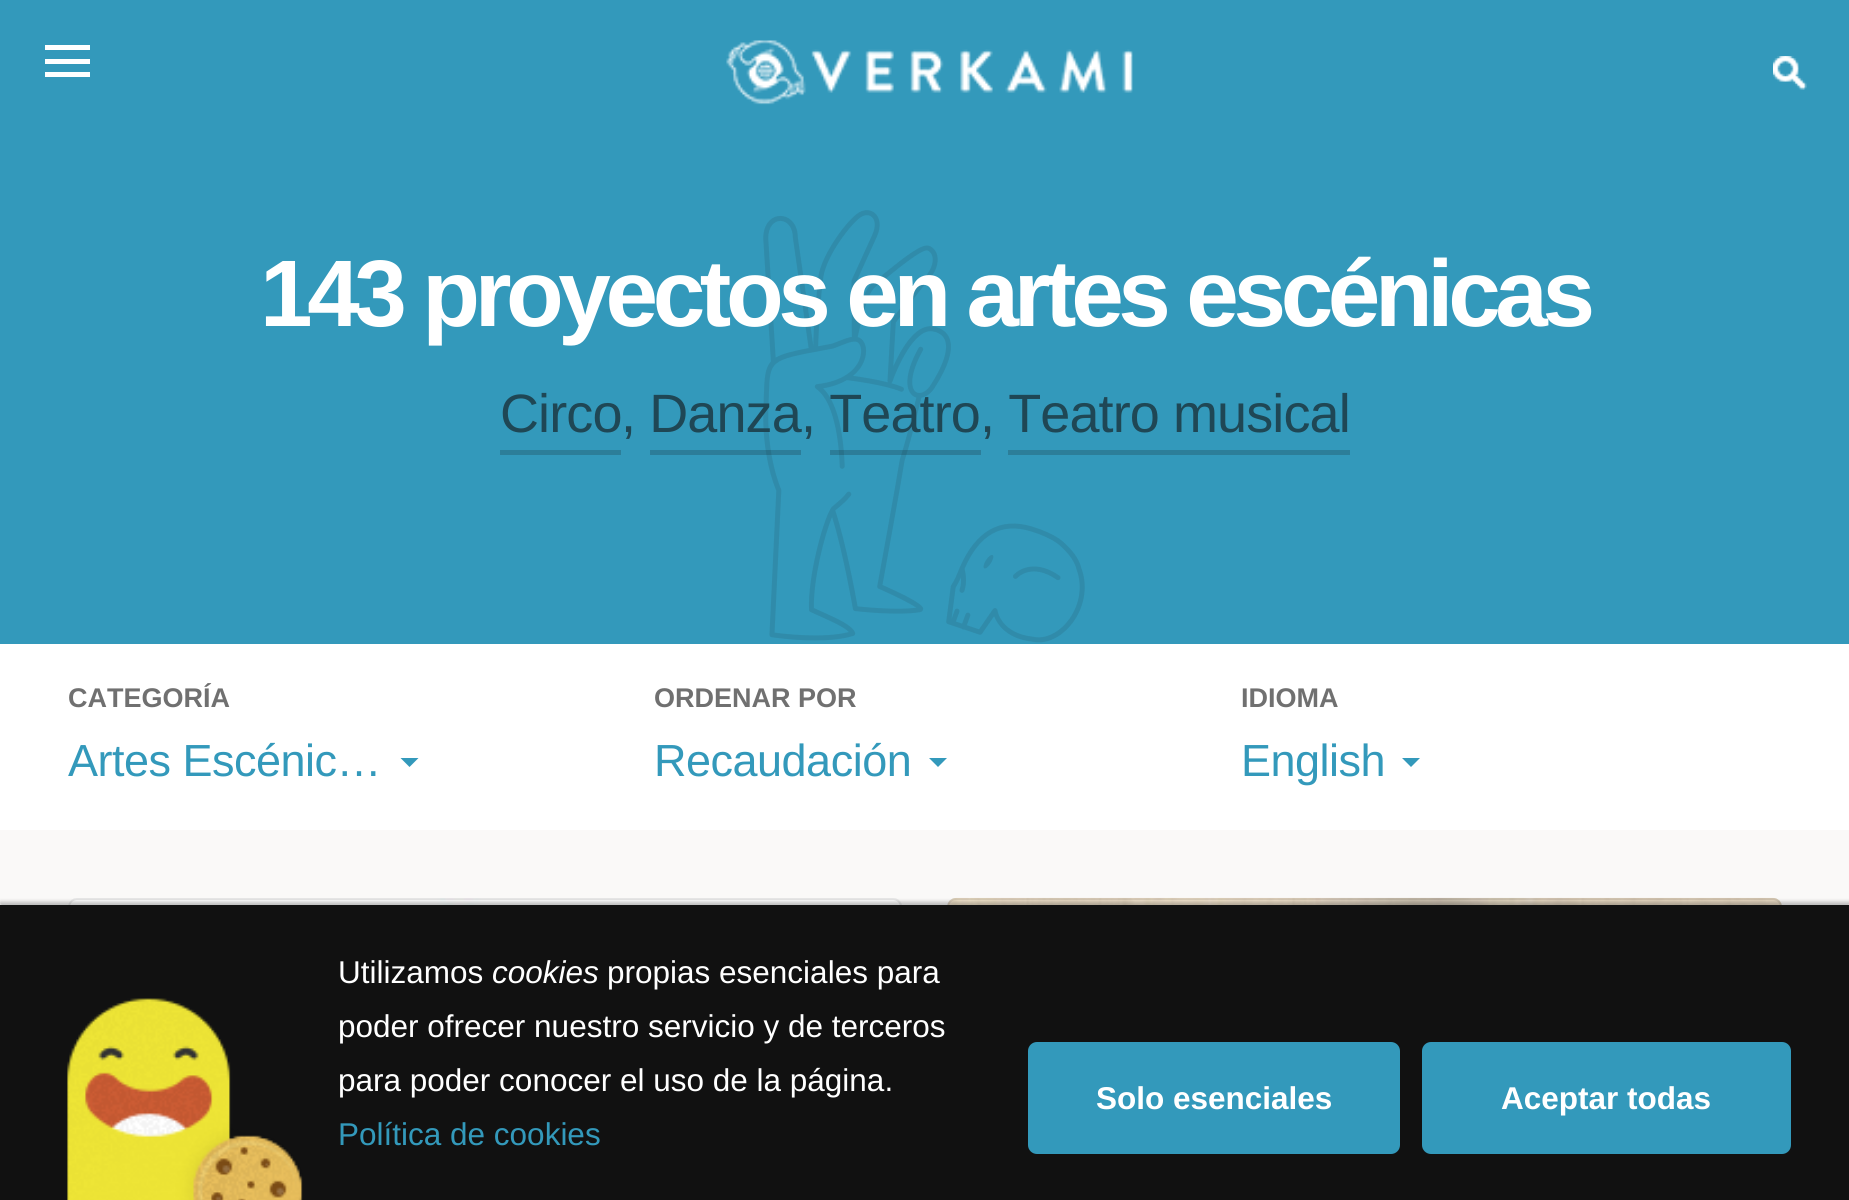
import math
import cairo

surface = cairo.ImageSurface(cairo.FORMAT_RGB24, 1849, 1200)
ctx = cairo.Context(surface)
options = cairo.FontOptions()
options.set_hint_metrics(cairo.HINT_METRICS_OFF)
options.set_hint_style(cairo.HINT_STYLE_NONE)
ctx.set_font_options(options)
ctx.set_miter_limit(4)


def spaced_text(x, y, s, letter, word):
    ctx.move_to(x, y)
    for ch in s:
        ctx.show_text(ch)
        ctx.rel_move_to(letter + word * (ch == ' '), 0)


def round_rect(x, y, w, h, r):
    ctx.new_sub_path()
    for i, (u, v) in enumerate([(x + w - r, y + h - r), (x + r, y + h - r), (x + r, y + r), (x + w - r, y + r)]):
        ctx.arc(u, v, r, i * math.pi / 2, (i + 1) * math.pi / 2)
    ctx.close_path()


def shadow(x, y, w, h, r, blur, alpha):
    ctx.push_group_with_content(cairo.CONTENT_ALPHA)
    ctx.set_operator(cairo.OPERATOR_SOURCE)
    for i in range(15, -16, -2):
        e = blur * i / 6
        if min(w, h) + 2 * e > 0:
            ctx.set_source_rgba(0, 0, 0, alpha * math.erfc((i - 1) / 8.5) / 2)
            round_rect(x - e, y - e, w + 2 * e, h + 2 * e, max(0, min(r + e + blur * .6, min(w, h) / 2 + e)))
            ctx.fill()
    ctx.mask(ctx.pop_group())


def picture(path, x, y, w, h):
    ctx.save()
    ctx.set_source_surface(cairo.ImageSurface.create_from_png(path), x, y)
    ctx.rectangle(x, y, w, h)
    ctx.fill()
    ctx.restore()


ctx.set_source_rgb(0.98, 0.976, 0.969)
ctx.paint()
ctx.set_source_rgb(0.2, 0.6, 0.733)
ctx.rectangle(0, 0, 1849, 644)
ctx.fill()
ctx.set_source_rgb(1, 1, 1)
ctx.rectangle(45, 59, 45, 5)
ctx.fill()
ctx.rectangle(45, 45, 45, 5)
ctx.fill()
ctx.rectangle(45, 72, 45, 5)
ctx.fill()
picture("img1.png", 726, 40, 407, 65)
picture("img2.png", 1773, 56, 34, 34)
picture("img3.png", 1773, 56, 34, 34)
picture("img4.png", 763, 210, 322, 433)
ctx.select_font_face("Liberation Sans", cairo.FONT_SLANT_NORMAL, cairo.FONT_WEIGHT_BOLD)
ctx.set_font_size(94.5)
spaced_text(260, 326, "143 proyectos en artes escénicas", -5.4, 0)
ctx.select_font_face("Liberation Sans")
ctx.set_font_size(54)
ctx.set_source_rgb(0.122, 0.278, 0.333)
spaced_text(500, 432, "Circo", -0.9, 0)
ctx.set_source_rgb(0.173, 0.494, 0.6)
ctx.rectangle(500, 450, 121, 5)
ctx.fill()
ctx.set_source_rgb(0.122, 0.278, 0.333)
spaced_text(621, 432, ", Danza", -0.9, 0)
spaced_text(801, 432, ", Teatro", -0.9, 0)
spaced_text(980, 432, ", Teatro musical", -0.9, 0)
ctx.set_source_rgba(0.067, 0.067, 0.067, 0.2)
ctx.rectangle(650, 450, 151, 5)
ctx.fill()
ctx.rectangle(830, 450, 151, 5)
ctx.fill()
ctx.set_source_rgb(0.173, 0.494, 0.6)
ctx.rectangle(1008, 450, 342, 5)
ctx.fill()
ctx.set_source_rgb(1, 1, 1)
ctx.rectangle(0, 644, 1849, 186)
ctx.fill()
ctx.select_font_face("Liberation Sans", cairo.FONT_SLANT_NORMAL, cairo.FONT_WEIGHT_BOLD)
ctx.set_font_size(27)
ctx.set_source_rgb(0.439, 0.439, 0.439)
ctx.move_to(68, 707)
ctx.show_text("CATEGORÍA")
ctx.select_font_face("Liberation Sans")
ctx.set_font_size(45)
ctx.set_source_rgb(0.2, 0.6, 0.733)
spaced_text(68, 776, "Artes Escénic…", -0.5, 0)
ctx.new_path()
ctx.move_to(400.5, 758)
ctx.line_to(418.5, 758)
ctx.line_to(409.5, 767)
ctx.close_path()
ctx.fill()
ctx.select_font_face("Liberation Sans", cairo.FONT_SLANT_NORMAL, cairo.FONT_WEIGHT_BOLD)
ctx.set_font_size(27)
ctx.set_source_rgb(0.439, 0.439, 0.439)
ctx.move_to(654, 707)
ctx.show_text("ORDENAR POR")
ctx.select_font_face("Liberation Sans")
ctx.set_font_size(45)
ctx.set_source_rgb(0.2, 0.6, 0.733)
spaced_text(654, 776, "Recaudación", -0.5, 0)
ctx.new_path()
ctx.move_to(929, 758)
ctx.line_to(947, 758)
ctx.line_to(938, 767)
ctx.close_path()
ctx.fill()
ctx.select_font_face("Liberation Sans", cairo.FONT_SLANT_NORMAL, cairo.FONT_WEIGHT_BOLD)
ctx.set_font_size(27)
ctx.set_source_rgb(0.439, 0.439, 0.439)
ctx.move_to(1241, 707)
ctx.show_text("IDIOMA")
ctx.select_font_face("Liberation Sans")
ctx.set_font_size(45)
ctx.set_source_rgb(0.2, 0.6, 0.733)
spaced_text(1241, 776, "English", -0.5, 0)
ctx.new_path()
ctx.move_to(1402, 758)
ctx.line_to(1420, 758)
ctx.line_to(1411, 767)
ctx.close_path()
ctx.fill()
round_rect(69, 899, 832, 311, 8)
ctx.set_source_rgba(0.067, 0.067, 0.067, 0.1)
ctx.stroke()
picture("img5.png", 68, 898, 834, 7)
round_rect(69, 899, 832, 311, 8)
ctx.stroke()
ctx.set_source_rgb(1, 1, 1)
round_rect(947, 898, 835, 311, 9)
ctx.fill()
round_rect(948, 899, 833, 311, 8)
ctx.set_source_rgba(0.067, 0.067, 0.067, 0.1)
ctx.stroke()
picture("img6.png", 947, 897, 835, 8)
round_rect(948, 899, 833, 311, 8)
ctx.stroke()
ctx.set_source_rgb(0.133, 0.133, 0.133)
shadow(0, 902, 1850, 297, 0, 2, 0.3)
ctx.set_source_rgb(0.067, 0.067, 0.067)
ctx.rectangle(0, 905, 1849, 295)
ctx.fill()
picture("img7.png", 67, 998, 236, 202)
ctx.set_font_size(31.5)
ctx.set_source_rgb(1, 1, 1)
ctx.move_to(338, 983)
ctx.show_text("Utilizamos")
ctx.select_font_face("Liberation Sans", cairo.FONT_SLANT_ITALIC)
ctx.move_to(492, 983)
ctx.show_text("cookies")
ctx.select_font_face("Liberation Sans")
ctx.move_to(607, 983)
ctx.show_text("propias esenciales para")
ctx.move_to(338, 1037)
ctx.show_text("poder ofrecer nuestro servicio y de terceros")
ctx.move_to(338, 1091)
ctx.show_text("para poder conocer el uso de la página.")
ctx.set_source_rgb(0.2, 0.6, 0.733)
ctx.move_to(338, 1145)
ctx.show_text("Política de cookies")
round_rect(1028, 1042, 372, 112, 9)
ctx.fill()
ctx.select_font_face("Liberation Sans", cairo.FONT_SLANT_NORMAL, cairo.FONT_WEIGHT_BOLD)
ctx.set_source_rgb(1, 1, 1)
ctx.move_to(1096, 1109)
ctx.show_text("Solo esenciales")
ctx.set_source_rgb(0.2, 0.6, 0.733)
round_rect(1422, 1042, 369, 112, 9)
ctx.fill()
ctx.set_source_rgb(1, 1, 1)
ctx.move_to(1501, 1109)
ctx.show_text("Aceptar todas")
surface.write_to_png("page.png")
